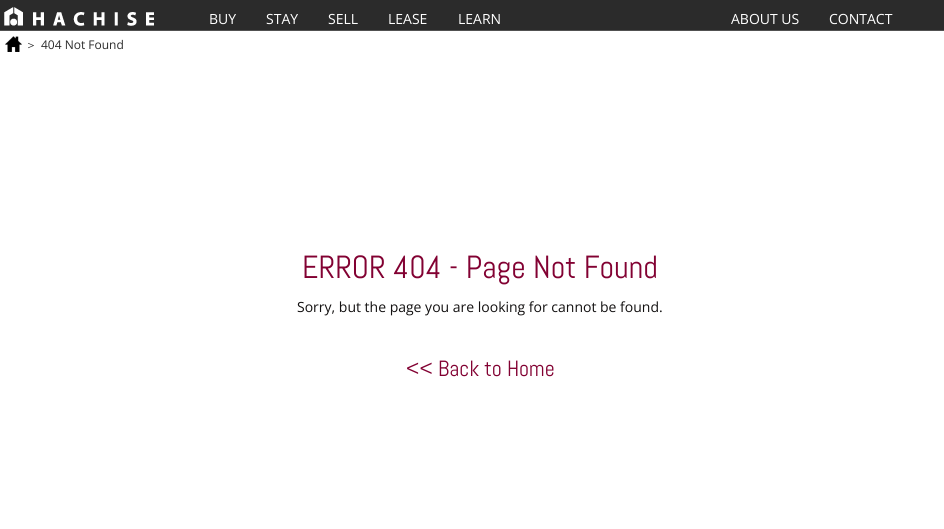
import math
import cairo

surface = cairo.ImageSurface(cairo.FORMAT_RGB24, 944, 529)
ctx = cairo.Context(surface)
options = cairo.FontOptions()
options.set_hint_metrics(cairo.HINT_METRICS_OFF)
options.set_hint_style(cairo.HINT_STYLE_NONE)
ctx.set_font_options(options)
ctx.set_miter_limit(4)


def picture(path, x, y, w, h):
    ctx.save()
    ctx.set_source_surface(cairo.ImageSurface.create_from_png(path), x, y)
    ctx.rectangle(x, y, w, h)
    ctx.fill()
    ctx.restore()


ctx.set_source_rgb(1, 1, 1)
ctx.paint()
ctx.set_source_rgb(0.169, 0.169, 0.169)
ctx.rectangle(0, 0, 944, 30)
ctx.fill()
ctx.set_source_rgb(0.318, 0.318, 0.318)
ctx.rectangle(0, 30, 944, 1)
ctx.fill()
picture("img1.png", 4, 7, 150, 19)
ctx.select_font_face("Open Sans")
ctx.set_font_size(14)
ctx.set_source_rgb(1, 1, 1)
ctx.move_to(209, 24)
ctx.show_text("BUY")
ctx.move_to(266, 24)
ctx.show_text("STAY")
ctx.move_to(328, 24)
ctx.show_text("SELL")
ctx.move_to(388, 24)
ctx.show_text("LEASE")
ctx.move_to(458, 24)
ctx.show_text("LEARN")
ctx.move_to(731, 24)
ctx.show_text("ABOUT US")
ctx.move_to(829, 24)
ctx.show_text("CONTACT")
picture("img2.png", 5, 36, 17, 16)
ctx.select_font_face("WenQuanYi Zen Hei Medium")
ctx.set_font_size(12)
ctx.set_source_rgb(0.169, 0.169, 0.169)
ctx.move_to(25, 49)
ctx.show_text("＞")
ctx.select_font_face("Open Sans")
ctx.move_to(41, 49)
ctx.show_text("404 Not Found")
ctx.select_font_face("Abel")
ctx.set_font_size(32)
ctx.set_source_rgb(0.51, 0.004, 0.196)
ctx.move_to(302, 278)
ctx.show_text("ERROR 404 - Page Not Found")
ctx.select_font_face("Open Sans")
ctx.set_font_size(14)
ctx.set_source_rgb(0.075, 0.067, 0.067)
ctx.move_to(297, 312)
ctx.show_text("Sorry, but the page you are looking for cannot be found.")
ctx.select_font_face("Abel")
ctx.set_font_size(22)
ctx.set_source_rgb(0.51, 0.004, 0.196)
ctx.move_to(406, 376)
ctx.show_text("<< Back to Home")
surface.write_to_png("page.png")
